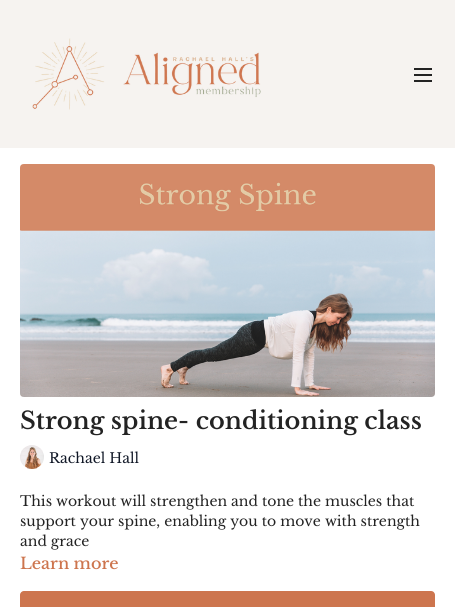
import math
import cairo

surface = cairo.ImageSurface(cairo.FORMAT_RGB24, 455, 607)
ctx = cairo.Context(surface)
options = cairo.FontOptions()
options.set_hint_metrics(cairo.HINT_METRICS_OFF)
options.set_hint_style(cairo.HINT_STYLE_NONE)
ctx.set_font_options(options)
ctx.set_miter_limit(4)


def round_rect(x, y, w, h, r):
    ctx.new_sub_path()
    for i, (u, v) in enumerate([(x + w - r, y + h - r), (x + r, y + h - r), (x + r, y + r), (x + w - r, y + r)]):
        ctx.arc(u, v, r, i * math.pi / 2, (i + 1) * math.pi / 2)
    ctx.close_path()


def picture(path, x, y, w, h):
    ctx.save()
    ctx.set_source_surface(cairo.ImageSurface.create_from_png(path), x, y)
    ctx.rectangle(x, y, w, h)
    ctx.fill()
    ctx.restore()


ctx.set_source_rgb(1, 1, 1)
ctx.paint()
ctx.set_source_rgb(0.961, 0.953, 0.941)
ctx.rectangle(0, 0, 455, 148)
ctx.fill()
picture("img1.png", 32, 38, 229, 72)
picture("img2.png", 414, 68, 18, 14)
picture("img3.png", 20, 164, 415, 233)
ctx.select_font_face("Libre Baskerville SemiBold")
ctx.set_font_size(24)
ctx.set_source_rgb(0.137, 0.137, 0.137)
ctx.move_to(20, 429)
ctx.show_text("Strong spine- conditioning class")
picture("img4.png", 20, 445, 24, 24)
ctx.select_font_face("Libre Baskerville")
ctx.set_font_size(14)
ctx.set_source_rgb(0.067, 0.094, 0.153)
ctx.move_to(49, 463)
ctx.show_text("Rachael Hall")
ctx.set_source_rgb(0.137, 0.137, 0.137)
ctx.move_to(20, 506)
ctx.show_text("This workout will strengthen and tone the muscles that")
ctx.move_to(20, 526)
ctx.show_text("support your spine, enabling you to move with strength")
ctx.move_to(20, 546)
ctx.show_text("and grace")
ctx.select_font_face("Libre Baskerville Medium")
ctx.set_font_size(16)
ctx.set_source_rgb(0.804, 0.459, 0.306)
ctx.move_to(20, 569)
ctx.show_text("Learn more")
round_rect(20, 591, 415, 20, 4)
ctx.fill()
surface.write_to_png("page.png")
